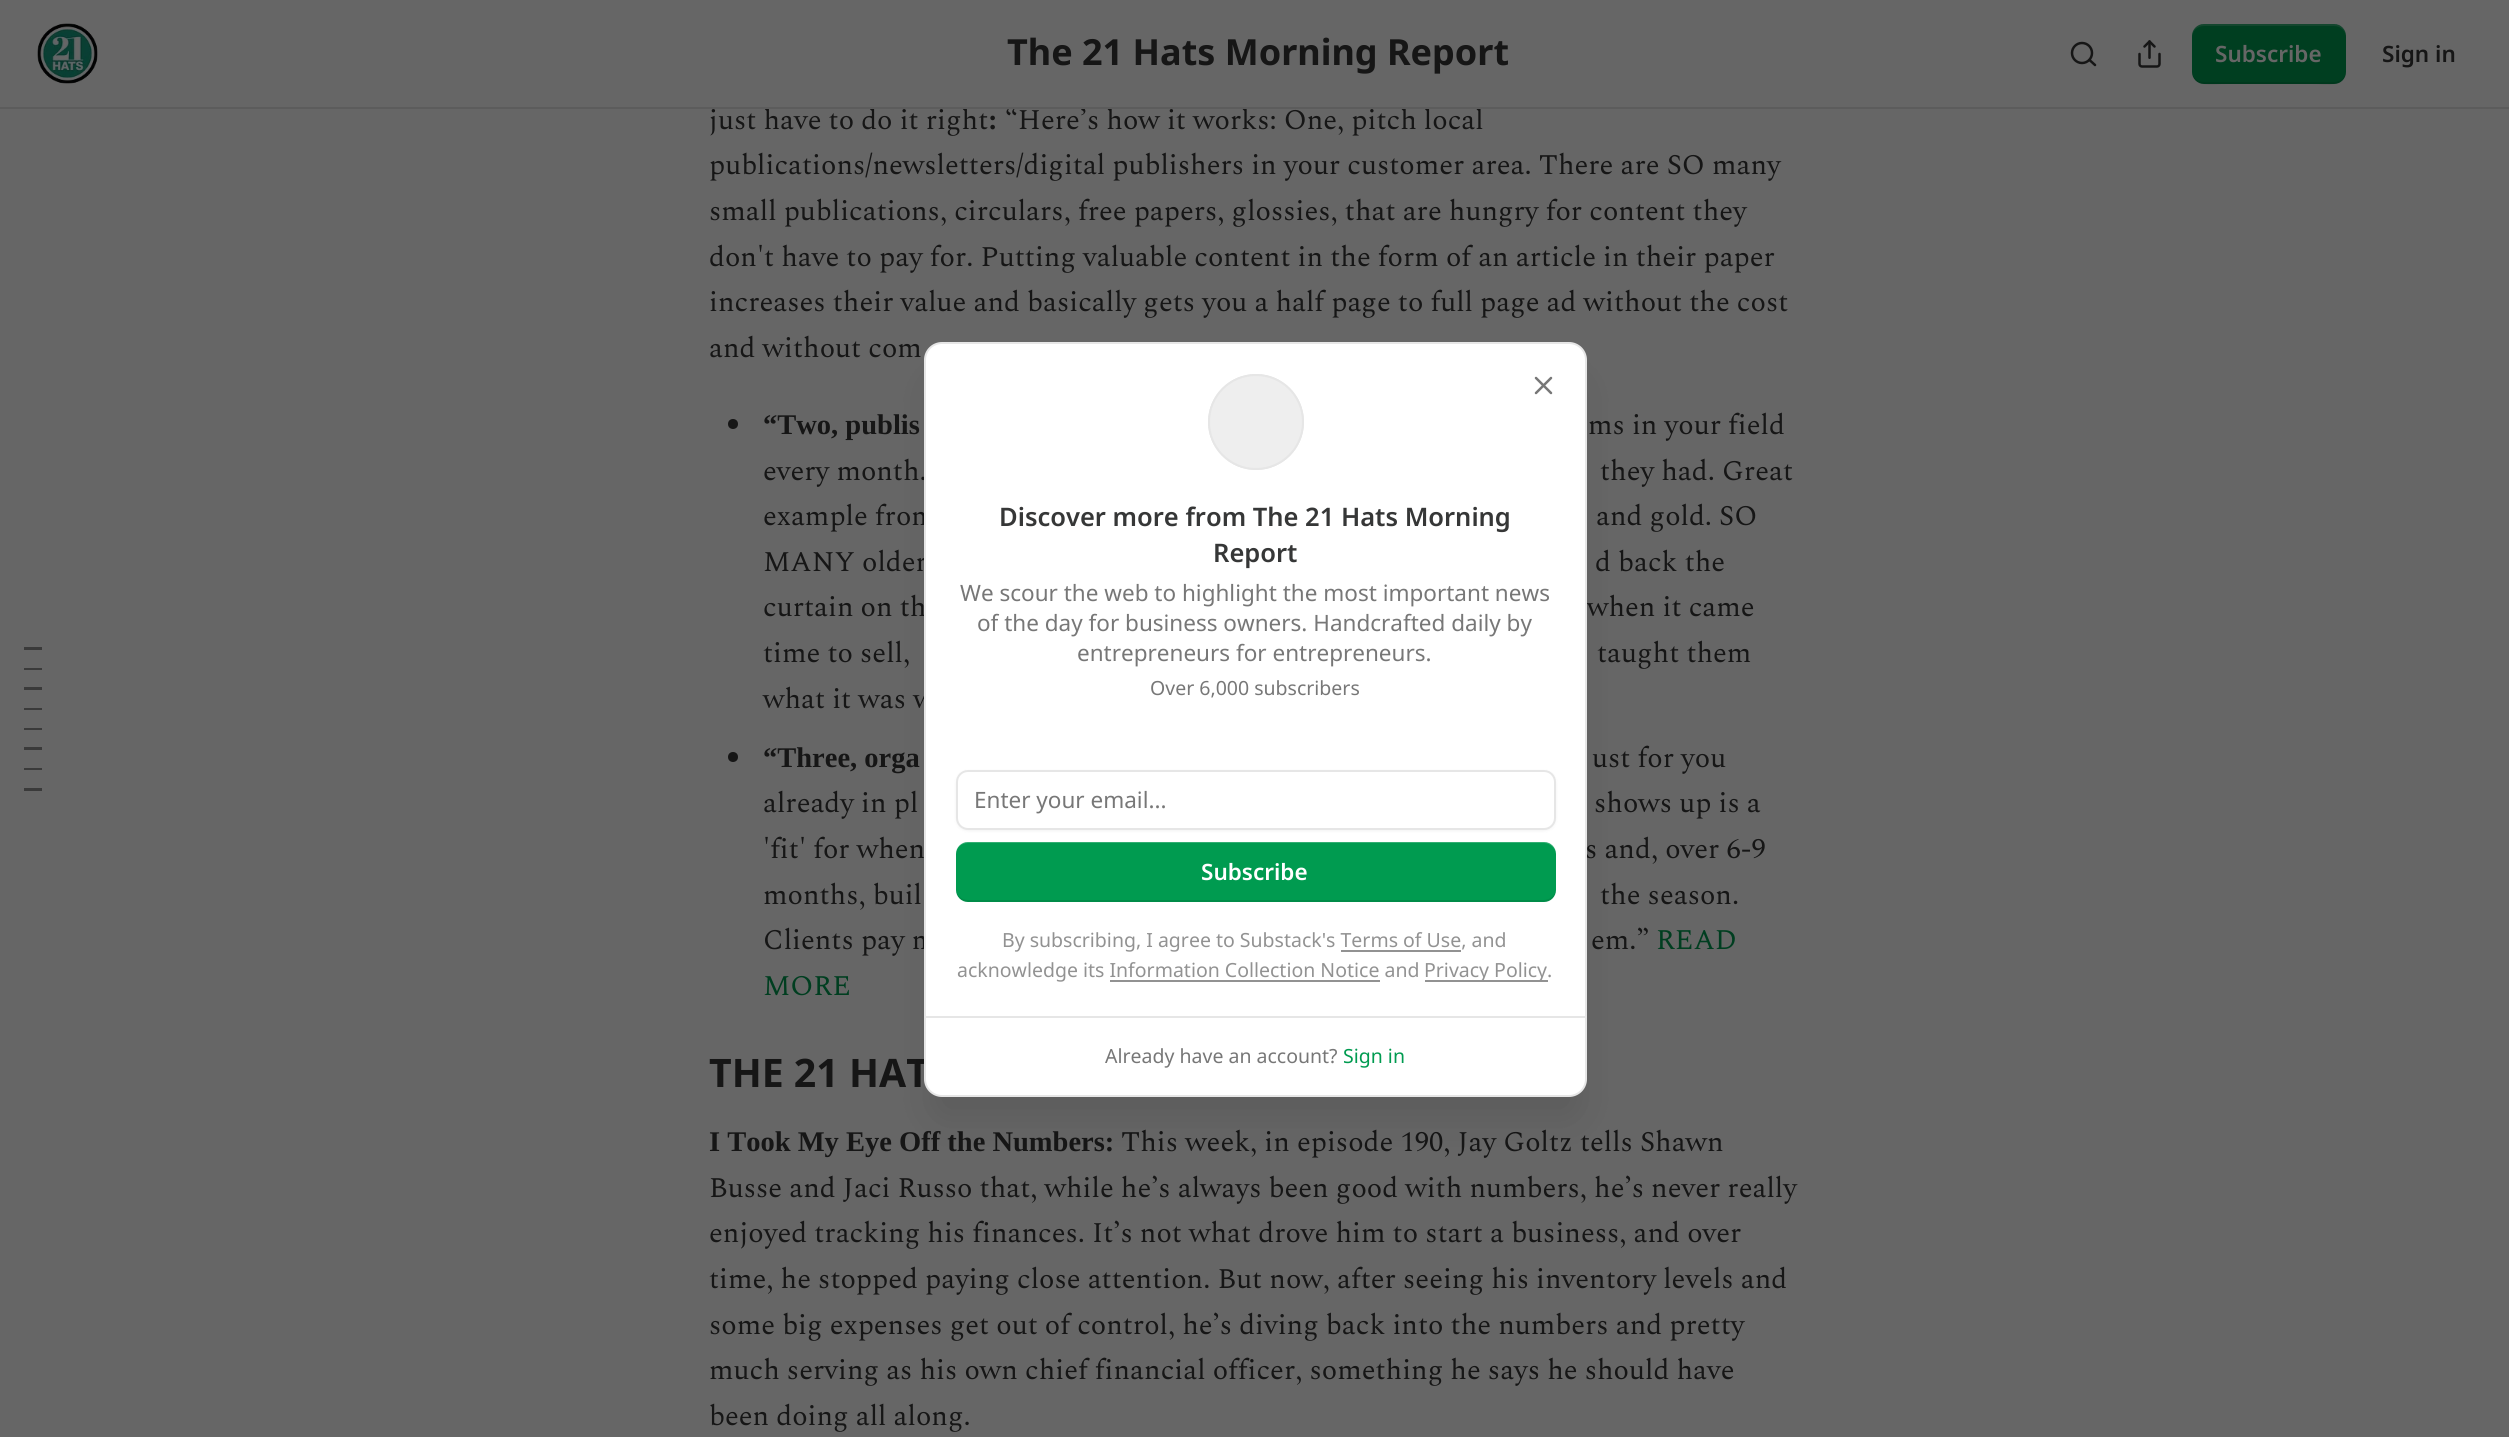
import math
import cairo

surface = cairo.ImageSurface(cairo.FORMAT_RGB24, 2509, 1437)
ctx = cairo.Context(surface)
options = cairo.FontOptions()
options.set_hint_metrics(cairo.HINT_METRICS_OFF)
options.set_hint_style(cairo.HINT_STYLE_NONE)
ctx.set_font_options(options)
ctx.set_miter_limit(4)


def round_rect(x, y, w, h, r):
    ctx.new_sub_path()
    for i, (u, v) in enumerate([(x + w - r, y + h - r), (x + r, y + h - r), (x + r, y + r), (x + w - r, y + r)]):
        ctx.arc(u, v, r, i * math.pi / 2, (i + 1) * math.pi / 2)
    ctx.close_path()


def shadow(x, y, w, h, r, blur, alpha):
    ctx.push_group_with_content(cairo.CONTENT_ALPHA)
    ctx.set_operator(cairo.OPERATOR_SOURCE)
    for i in range(15, -16, -2):
        e = blur * i / 6
        if min(w, h) + 2 * e > 0:
            ctx.set_source_rgba(0, 0, 0, alpha * math.erfc((i - 1) / 8.5) / 2)
            round_rect(x - e, y - e, w + 2 * e, h + 2 * e, max(0, min(r + e + blur * .6, min(w, h) / 2 + e)))
            ctx.fill()
    ctx.mask(ctx.pop_group())


def picture(path, x, y, w, h):
    ctx.save()
    ctx.set_source_surface(cairo.ImageSurface.create_from_png(path), x, y)
    ctx.rectangle(x, y, w, h)
    ctx.fill()
    ctx.restore()


ctx.set_source_rgb(0.4, 0.4, 0.4)
ctx.paint()
ctx.select_font_face("Spectral")
ctx.set_font_size(28.5)
ctx.set_source_rgb(0.086, 0.086, 0.086)
ctx.move_to(709, 129)
ctx.show_text("just have to do it right")
ctx.move_to(1005, 129)
ctx.show_text("“Here’s how it works: One, pitch local")
ctx.set_source_rgb(0.361, 0.361, 0.361)
ctx.rectangle(0, 107, 2509, 2)
ctx.fill()
picture("img1.png", 37, 23, 61, 61)
ctx.select_font_face("Noto Sans", cairo.FONT_SLANT_NORMAL, cairo.FONT_WEIGHT_BOLD)
ctx.set_font_size(36)
ctx.set_source_rgb(0.086, 0.086, 0.086)
ctx.move_to(1007, 65)
ctx.show_text("The 21 Hats Morning Report")
ctx.new_path()
ctx.arc(2082, 53, 10, 0, 2 * math.pi)
ctx.set_line_width(2.5)
ctx.stroke()
ctx.new_path()
ctx.move_to(2095, 65)
ctx.line_to(2089.5, 60)
ctx.set_line_cap(cairo.LINE_CAP_ROUND)
ctx.set_line_join(cairo.LINE_JOIN_ROUND)
ctx.stroke()
picture("img2.png", 2138, 40, 23, 28)
ctx.set_source_rgb(0, 0.243, 0.125)
round_rect(2192, 24, 154, 60, 12)
ctx.fill()
ctx.set_source_rgba(0, 0, 0, 0.1)
ctx.new_path()
ctx.move_to(2192, 70)
ctx.curve_to(2192, 89, 2212, 84, 2226, 84)
ctx.line_to(2312, 84)
ctx.curve_to(2326, 84, 2346, 89, 2346, 70)
ctx.curve_to(2346, 77, 2341, 82, 2334, 82)
ctx.line_to(2204, 82)
ctx.curve_to(2197, 82, 2192, 77, 2192, 70)
ctx.close_path()
ctx.fill()
ctx.set_source_rgba(0.4, 0.4, 0.4, 0.2)
ctx.new_path()
ctx.move_to(2204, 26)
ctx.line_to(2334, 26)
ctx.curve_to(2341, 26, 2346, 31, 2346, 38)
ctx.curve_to(2346, 19, 2326, 24, 2312, 24)
ctx.line_to(2226, 24)
ctx.curve_to(2212, 24, 2192, 19, 2192, 38)
ctx.curve_to(2192, 31, 2197, 26, 2204, 26)
ctx.close_path()
ctx.fill()
ctx.select_font_face("Noto Sans SemiBold")
ctx.set_font_size(22.5)
ctx.set_source_rgb(0.4, 0.4, 0.4)
ctx.move_to(2215, 62)
ctx.show_text("Subscribe")
ctx.set_source_rgb(0.086, 0.086, 0.086)
ctx.move_to(2382, 62)
ctx.show_text("Sign in")
ctx.set_source_rgb(0.227, 0.227, 0.227)
ctx.rectangle(24, 647, 18, 3)
ctx.fill()
ctx.rectangle(24, 668, 18, 2)
ctx.fill()
ctx.rectangle(24, 687, 18, 3)
ctx.fill()
ctx.rectangle(24, 708, 18, 2)
ctx.fill()
ctx.rectangle(24, 728, 18, 2)
ctx.fill()
ctx.rectangle(24, 747, 18, 3)
ctx.fill()
ctx.rectangle(24, 768, 18, 2)
ctx.fill()
ctx.rectangle(24, 788, 18, 3)
ctx.fill()
ctx.select_font_face("Liberation Serif", cairo.FONT_SLANT_NORMAL, cairo.FONT_WEIGHT_BOLD)
ctx.set_font_size(28.5)
ctx.set_source_rgb(0.086, 0.086, 0.086)
ctx.move_to(988, 129)
ctx.show_text(":")
ctx.select_font_face("Spectral")
ctx.move_to(709, 174)
ctx.show_text("publications/newsletters/digital publishers in your customer area. There are SO many")
ctx.move_to(709, 220)
ctx.show_text("small publications, circulars, free papers, glossies, that are hungry for content they")
ctx.move_to(709, 266)
ctx.show_text("don't have to pay for. Putting valuable content in the form of an article in their paper")
ctx.move_to(709, 311)
ctx.show_text("increases their value and basically gets you a half page to full page ad without the cost")
ctx.move_to(709, 357)
ctx.show_text("and without com")
ctx.new_path()
ctx.arc(733, 424, 5, 0, 2 * math.pi)
ctx.fill()
ctx.select_font_face("Liberation Serif", cairo.FONT_SLANT_NORMAL, cairo.FONT_WEIGHT_BOLD)
ctx.move_to(763, 434)
ctx.show_text("“Two, publis")
ctx.select_font_face("Spectral")
ctx.move_to(1588, 434)
ctx.show_text("ms in your field")
ctx.move_to(763, 480)
ctx.show_text("every month.")
ctx.move_to(1600, 480)
ctx.show_text("they had. Great")
ctx.move_to(763, 525)
ctx.show_text("example from")
ctx.move_to(1596, 525)
ctx.show_text("and gold. SO")
ctx.move_to(763, 571)
ctx.show_text("MANY older")
ctx.move_to(1595, 571)
ctx.show_text("d back the")
ctx.move_to(763, 616)
ctx.show_text("curtain on th")
ctx.move_to(1587, 616)
ctx.show_text("when it came")
ctx.move_to(763, 662)
ctx.show_text("time to sell,")
ctx.move_to(1597, 662)
ctx.show_text("taught them")
ctx.move_to(763, 708)
ctx.show_text("what it was w")
ctx.new_path()
ctx.arc(733, 757, 5, 0, 2 * math.pi)
ctx.fill()
ctx.select_font_face("Liberation Serif", cairo.FONT_SLANT_NORMAL, cairo.FONT_WEIGHT_BOLD)
ctx.move_to(763, 767)
ctx.show_text("“Three, orga")
ctx.select_font_face("Spectral")
ctx.move_to(1592, 767)
ctx.show_text("ust for you")
ctx.move_to(763, 812)
ctx.show_text("already in pl")
ctx.move_to(1594, 812)
ctx.show_text("shows up is a")
ctx.move_to(763, 858)
ctx.show_text("'fit' for when")
ctx.move_to(1585, 858)
ctx.show_text("s and, over 6-9")
ctx.move_to(763, 904)
ctx.show_text("months, buil")
ctx.move_to(1600, 904)
ctx.show_text("the season.")
ctx.move_to(763, 949)
ctx.show_text("Clients pay m")
ctx.move_to(1591, 949)
ctx.show_text("em.”")
ctx.set_source_rgb(0, 0.243, 0.125)
ctx.move_to(1656, 949)
ctx.show_text("READ")
ctx.move_to(763, 995)
ctx.show_text("MORE")
ctx.select_font_face("Noto Sans", cairo.FONT_SLANT_NORMAL, cairo.FONT_WEIGHT_BOLD)
ctx.set_font_size(39.25)
ctx.set_source_rgb(0.086, 0.086, 0.086)
ctx.move_to(709, 1087)
ctx.show_text("THE 21 HAT")
ctx.select_font_face("Liberation Serif", cairo.FONT_SLANT_NORMAL, cairo.FONT_WEIGHT_BOLD)
ctx.set_font_size(28.5)
ctx.move_to(709, 1151)
ctx.show_text("I Took My Eye Off the Numbers:")
ctx.select_font_face("Spectral")
ctx.move_to(1121, 1151)
ctx.show_text("This week, in episode 190, Jay Goltz tells Shawn")
ctx.move_to(709, 1197)
ctx.show_text("Busse and Jaci Russo that, while he’s always been good with numbers, he’s never really")
ctx.move_to(709, 1242)
ctx.show_text("enjoyed tracking his finances. It’s not what drove him to start a business, and over")
ctx.move_to(709, 1288)
ctx.show_text("time, he stopped paying close attention. But now, after seeing his inventory levels and")
ctx.move_to(709, 1334)
ctx.show_text("some big expenses get out of control, he’s diving back into the numbers and pretty")
ctx.move_to(709, 1379)
ctx.show_text("much serving as his own chief financial officer, something he says he should have")
ctx.move_to(709, 1425)
ctx.show_text("been doing all along.")
ctx.set_source_rgb(0, 0, 0)
shadow(932, 380, 648, 739, 11, 19, 0.1)
ctx.set_source_rgb(1, 1, 1)
round_rect(925, 343, 661, 753, 17)
ctx.fill_preserve()
ctx.set_source_rgb(0.902, 0.902, 0.902)
ctx.set_line_width(2)
ctx.set_line_cap(cairo.LINE_CAP_BUTT)
ctx.set_line_join(cairo.LINE_JOIN_MITER)
ctx.stroke()
ctx.arc(1256, 422, 47, 0, 2 * math.pi)
ctx.stroke()
ctx.set_source_rgb(0.933, 0.933, 0.933)
ctx.arc(1256, 422, 47, 0, 2 * math.pi)
ctx.fill_preserve()
ctx.set_source_rgb(0.902, 0.902, 0.902)
ctx.stroke()
ctx.new_path()
ctx.move_to(1551, 378)
ctx.line_to(1536, 393)
ctx.move_to(1536, 378)
ctx.line_to(1551, 393)
ctx.set_source_rgb(0.467, 0.467, 0.467)
ctx.set_line_width(2.5)
ctx.set_line_cap(cairo.LINE_CAP_ROUND)
ctx.set_line_join(cairo.LINE_JOIN_ROUND)
ctx.stroke()
ctx.select_font_face("Noto Sans SemiBold")
ctx.set_font_size(25.5)
ctx.set_source_rgb(0.212, 0.216, 0.216)
ctx.move_to(999, 526)
ctx.show_text("Discover more from The 21 Hats Morning")
ctx.move_to(1213, 562)
ctx.show_text("Report")
ctx.select_font_face("Noto Sans")
ctx.set_font_size(22.5)
ctx.set_source_rgb(0.467, 0.467, 0.467)
ctx.move_to(960, 601)
ctx.show_text("We scour the web to highlight the most important news")
ctx.move_to(977, 631)
ctx.show_text("of the day for business owners. Handcrafted daily by")
ctx.move_to(1077, 661)
ctx.show_text("entrepreneurs for entrepreneurs.")
ctx.set_font_size(19.5)
ctx.move_to(1150, 695)
ctx.show_text("Over 6,000 subscribers")
ctx.set_source_rgb(0, 0, 0)
shadow(956, 771, 600, 60, 12, 1.5, 0.05)
ctx.set_source_rgb(1, 1, 1)
round_rect(957, 771, 598, 58, 11)
ctx.fill_preserve()
ctx.set_source_rgb(0.902, 0.902, 0.902)
ctx.set_line_width(2)
ctx.set_line_cap(cairo.LINE_CAP_BUTT)
ctx.set_line_join(cairo.LINE_JOIN_MITER)
ctx.stroke()
ctx.set_font_size(22.5)
ctx.set_source_rgb(0.467, 0.467, 0.467)
ctx.move_to(974, 808)
ctx.show_text("Enter your email...")
ctx.set_source_rgb(0, 0.608, 0.314)
round_rect(956, 842, 600, 60, 12)
ctx.fill()
ctx.set_source_rgba(0, 0, 0, 0.1)
ctx.new_path()
ctx.move_to(956, 888)
ctx.curve_to(956, 895, 960, 902, 968, 902)
ctx.line_to(1544, 902)
ctx.curve_to(1552, 902, 1556, 895, 1556, 888)
ctx.curve_to(1556, 895, 1550, 900, 1544, 900)
ctx.line_to(968, 900)
ctx.curve_to(961, 900, 956, 895, 956, 888)
ctx.close_path()
ctx.fill()
ctx.set_source_rgba(1, 1, 1, 0.2)
ctx.new_path()
ctx.move_to(968, 843)
ctx.line_to(1544, 843)
ctx.curve_to(1550, 843, 1556, 848, 1556, 855)
ctx.curve_to(1556, 848, 1551, 842, 1544, 842)
ctx.line_to(968, 842)
ctx.curve_to(961, 842, 956, 848, 956, 855)
ctx.curve_to(956, 848, 961, 843, 968, 843)
ctx.close_path()
ctx.fill()
ctx.select_font_face("Noto Sans SemiBold")
ctx.set_source_rgb(1, 1, 1)
ctx.move_to(1201, 880)
ctx.show_text("Subscribe")
ctx.select_font_face("Noto Sans")
ctx.set_font_size(19.5)
ctx.set_source_rgb(0.573, 0.573, 0.573)
ctx.move_to(1002, 947)
ctx.show_text("By subscribing, I agree to Substack's Terms of Use, and")
ctx.rectangle(1341, 950, 120, 2)
ctx.fill()
ctx.move_to(957, 977)
ctx.show_text("acknowledge its Information Collection Notice and")
ctx.rectangle(1425, 980, 123, 2)
ctx.fill()
ctx.move_to(1424, 977)
ctx.show_text("Privacy Policy.")
ctx.rectangle(1110, 980, 270, 2)
ctx.fill()
ctx.set_source_rgb(0.902, 0.902, 0.902)
ctx.rectangle(926, 1016, 660, 2)
ctx.fill()
ctx.set_source_rgb(0.467, 0.467, 0.467)
ctx.move_to(1105, 1063)
ctx.show_text("Already have an account?")
ctx.set_source_rgb(0, 0.608, 0.314)
ctx.move_to(1343, 1063)
ctx.show_text("Sign in")
surface.write_to_png("page.png")
